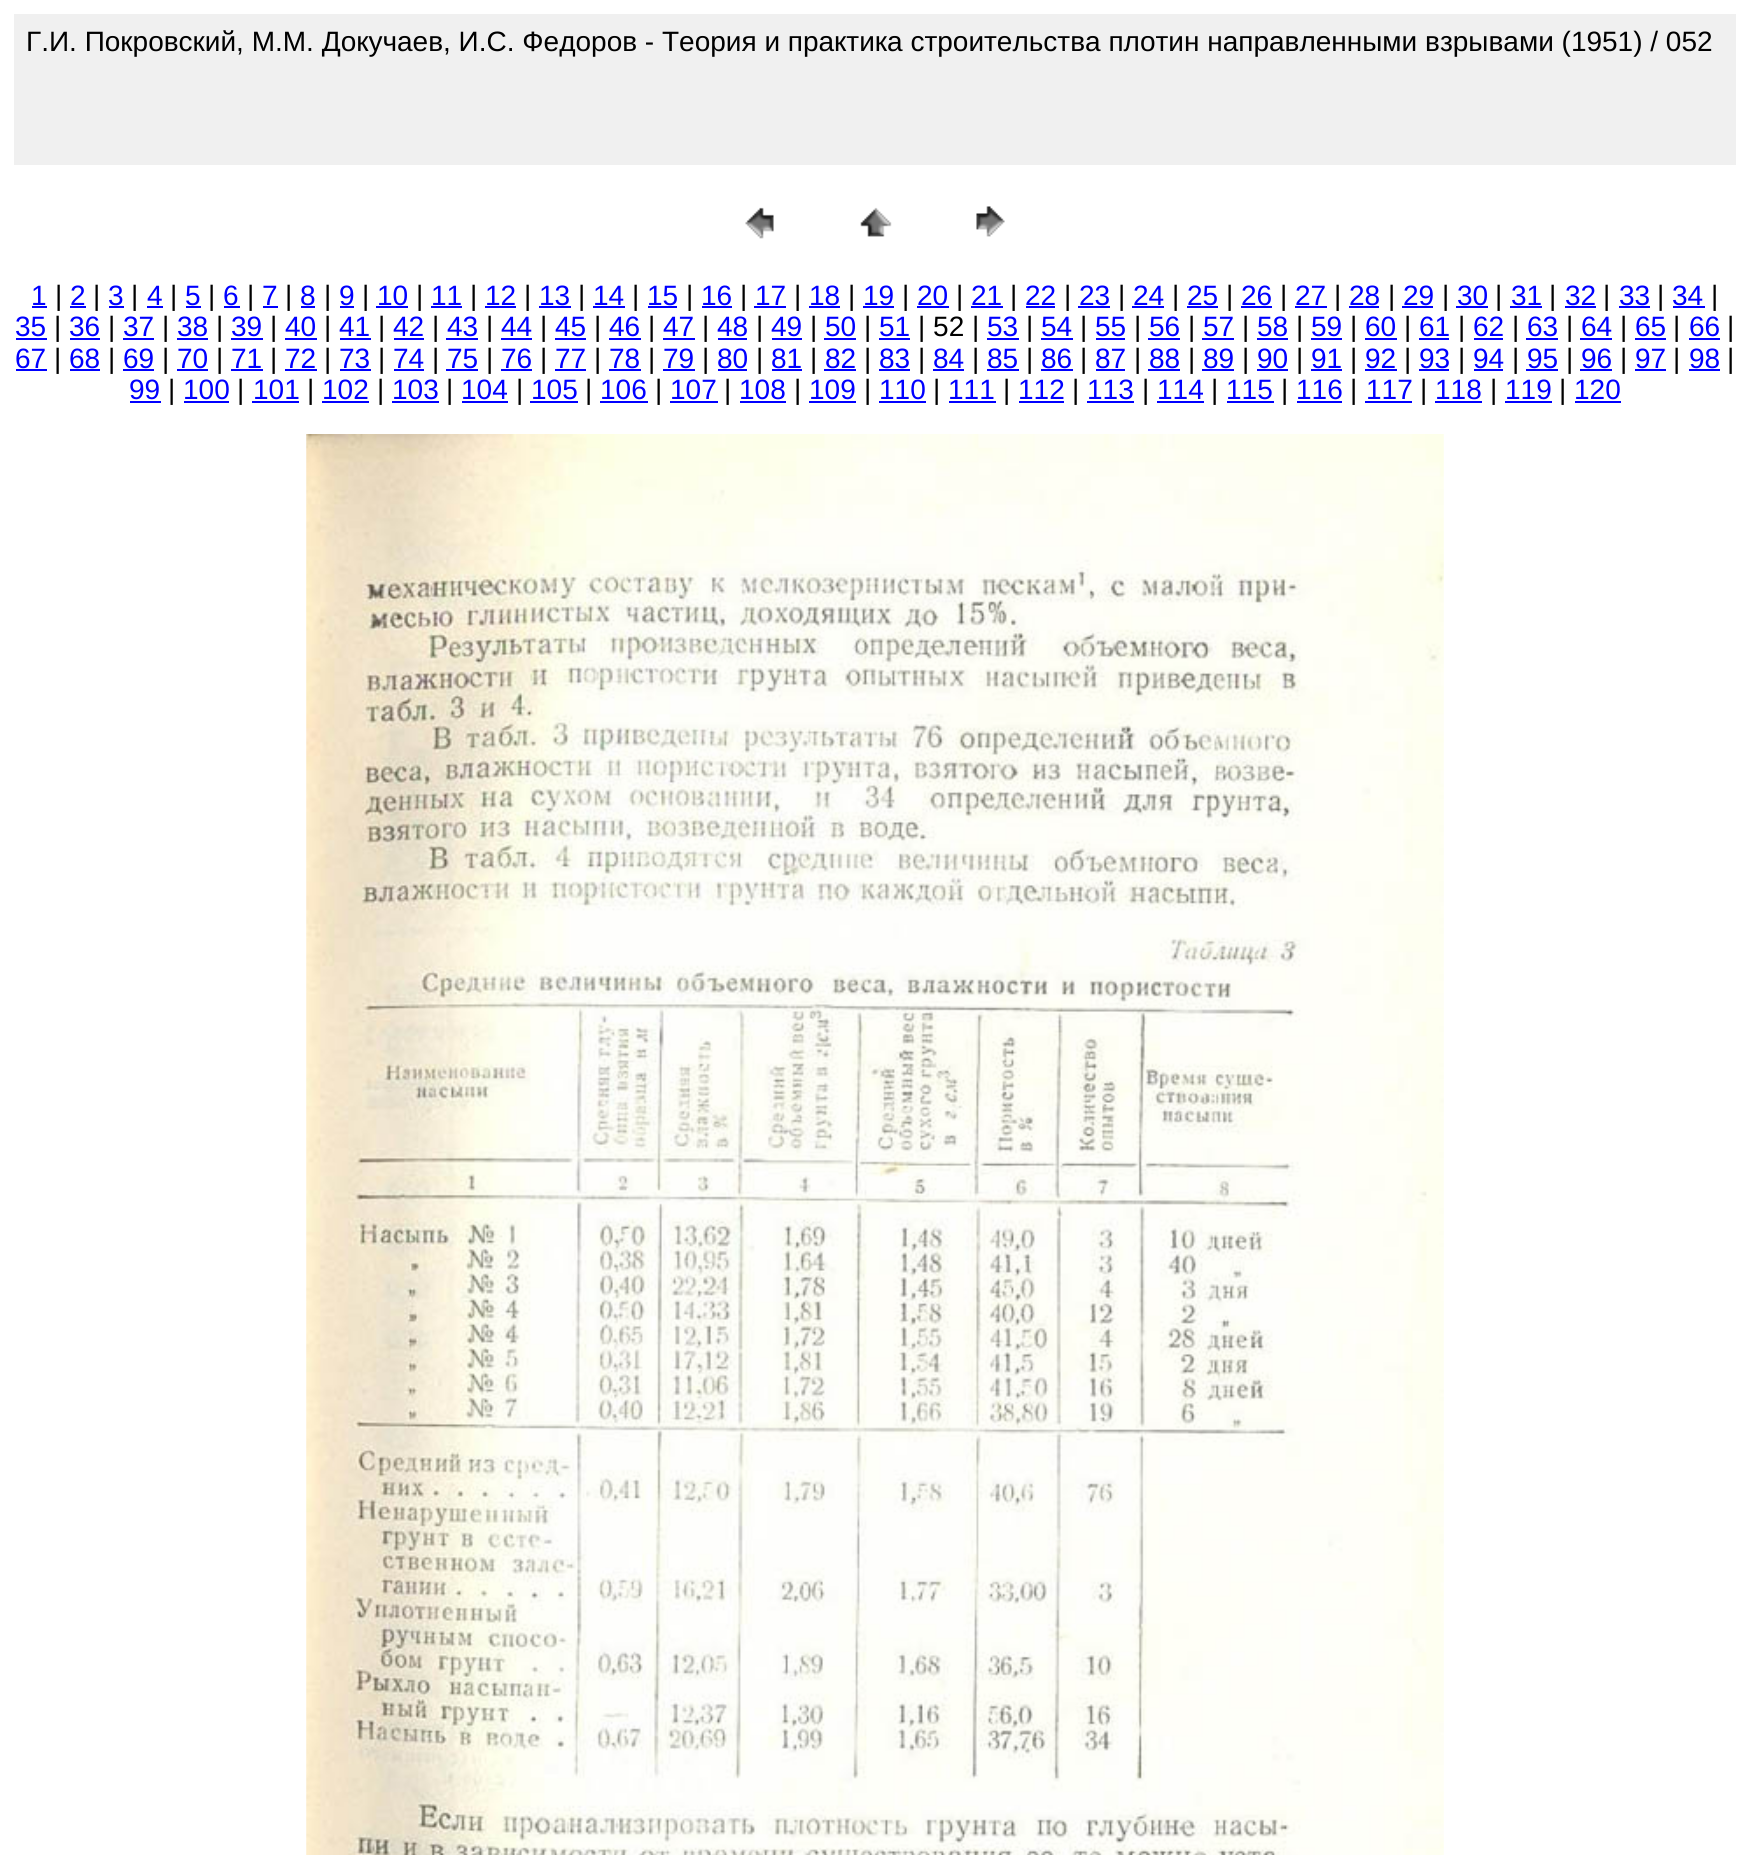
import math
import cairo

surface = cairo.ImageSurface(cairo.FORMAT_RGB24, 1749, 1855)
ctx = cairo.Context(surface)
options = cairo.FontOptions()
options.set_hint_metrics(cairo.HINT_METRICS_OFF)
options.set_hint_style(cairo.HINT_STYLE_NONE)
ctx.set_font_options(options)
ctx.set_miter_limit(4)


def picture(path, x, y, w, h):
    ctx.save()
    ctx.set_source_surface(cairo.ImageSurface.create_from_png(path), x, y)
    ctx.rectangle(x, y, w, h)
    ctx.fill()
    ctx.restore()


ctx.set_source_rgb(1, 1, 1)
ctx.paint()
ctx.set_source_rgb(0.941, 0.941, 0.941)
ctx.rectangle(14, 14, 1722, 151)
ctx.fill()
ctx.select_font_face("Liberation Sans")
ctx.set_font_size(28)
ctx.set_source_rgb(0, 0, 0)
ctx.move_to(26, 51)
ctx.show_text("Г.И. Покровский, M.M. Докучаев, И.С. Федоров - Теория и практика строительства плотин направленными взрывами (1951) / 052")
picture("img1.png", 745, 207, 29, 32)
picture("img2.png", 860, 207, 32, 30)
picture("img3.png", 976, 206, 29, 31)
ctx.set_source_rgb(0, 0, 1)
ctx.move_to(31, 305)
ctx.show_text("1")
ctx.rectangle(32, 306, 15, 2)
ctx.fill()
ctx.set_source_rgb(0, 0, 0)
ctx.move_to(55, 305)
ctx.show_text("|")
ctx.set_source_rgb(0, 0, 1)
ctx.move_to(70, 305)
ctx.show_text("2")
ctx.rectangle(70, 306, 16, 2)
ctx.fill()
ctx.set_source_rgb(0, 0, 0)
ctx.move_to(93, 305)
ctx.show_text("|")
ctx.set_source_rgb(0, 0, 1)
ctx.move_to(108, 305)
ctx.show_text("3")
ctx.rectangle(109, 306, 15, 2)
ctx.fill()
ctx.set_source_rgb(0, 0, 0)
ctx.move_to(131, 305)
ctx.show_text("|")
ctx.set_source_rgb(0, 0, 1)
ctx.move_to(147, 305)
ctx.show_text("4")
ctx.rectangle(147, 306, 16, 2)
ctx.fill()
ctx.set_source_rgb(0, 0, 0)
ctx.move_to(170, 305)
ctx.show_text("|")
ctx.set_source_rgb(0, 0, 1)
ctx.move_to(185, 305)
ctx.show_text("5")
ctx.rectangle(186, 306, 15, 2)
ctx.fill()
ctx.set_source_rgb(0, 0, 0)
ctx.move_to(208, 305)
ctx.show_text("|")
ctx.set_source_rgb(0, 0, 1)
ctx.move_to(223, 305)
ctx.show_text("6")
ctx.rectangle(224, 306, 16, 2)
ctx.fill()
ctx.set_source_rgb(0, 0, 0)
ctx.move_to(247, 305)
ctx.show_text("|")
ctx.set_source_rgb(0, 0, 1)
ctx.move_to(262, 305)
ctx.show_text("7")
ctx.rectangle(263, 306, 15, 2)
ctx.fill()
ctx.set_source_rgb(0, 0, 0)
ctx.move_to(285, 305)
ctx.show_text("|")
ctx.set_source_rgb(0, 0, 1)
ctx.move_to(300, 305)
ctx.show_text("8")
ctx.rectangle(301, 306, 14, 2)
ctx.fill()
ctx.set_source_rgb(0, 0, 0)
ctx.move_to(324, 305)
ctx.show_text("|")
ctx.set_source_rgb(0, 0, 1)
ctx.move_to(339, 305)
ctx.show_text("9")
ctx.rectangle(340, 306, 14, 2)
ctx.fill()
ctx.set_source_rgb(0, 0, 0)
ctx.move_to(362, 305)
ctx.show_text("|")
ctx.set_source_rgb(0, 0, 1)
ctx.move_to(377, 305)
ctx.show_text("10")
ctx.rectangle(376, 306, 32, 2)
ctx.fill()
ctx.set_source_rgb(0, 0, 0)
ctx.move_to(416, 305)
ctx.show_text("|")
ctx.set_source_rgb(0, 0, 1)
ctx.move_to(431, 305)
ctx.show_text("11")
ctx.rectangle(431, 306, 31, 2)
ctx.fill()
ctx.set_source_rgb(0, 0, 0)
ctx.move_to(470, 305)
ctx.show_text("|")
ctx.set_source_rgb(0, 0, 1)
ctx.move_to(485, 305)
ctx.show_text("12")
ctx.rectangle(485, 306, 31, 2)
ctx.fill()
ctx.set_source_rgb(0, 0, 0)
ctx.move_to(524, 305)
ctx.show_text("|")
ctx.set_source_rgb(0, 0, 1)
ctx.move_to(539, 305)
ctx.show_text("13")
ctx.rectangle(539, 306, 32, 2)
ctx.fill()
ctx.set_source_rgb(0, 0, 0)
ctx.move_to(578, 305)
ctx.show_text("|")
ctx.set_source_rgb(0, 0, 1)
ctx.move_to(593, 305)
ctx.show_text("14")
ctx.rectangle(593, 306, 32, 2)
ctx.fill()
ctx.set_source_rgb(0, 0, 0)
ctx.move_to(632, 305)
ctx.show_text("|")
ctx.set_source_rgb(0, 0, 1)
ctx.move_to(647, 305)
ctx.show_text("15")
ctx.rectangle(648, 306, 29, 2)
ctx.fill()
ctx.set_source_rgb(0, 0, 0)
ctx.move_to(686, 305)
ctx.show_text("|")
ctx.set_source_rgb(0, 0, 1)
ctx.move_to(701, 305)
ctx.show_text("16")
ctx.rectangle(702, 306, 30, 2)
ctx.fill()
ctx.set_source_rgb(0, 0, 0)
ctx.move_to(740, 305)
ctx.show_text("|")
ctx.set_source_rgb(0, 0, 1)
ctx.move_to(755, 305)
ctx.show_text("17")
ctx.rectangle(754, 306, 32, 2)
ctx.fill()
ctx.set_source_rgb(0, 0, 0)
ctx.move_to(794, 305)
ctx.show_text("|")
ctx.set_source_rgb(0, 0, 1)
ctx.move_to(809, 305)
ctx.show_text("18")
ctx.rectangle(809, 306, 31, 2)
ctx.fill()
ctx.set_source_rgb(0, 0, 0)
ctx.move_to(848, 305)
ctx.show_text("|")
ctx.set_source_rgb(0, 0, 1)
ctx.move_to(863, 305)
ctx.show_text("19")
ctx.rectangle(863, 306, 31, 2)
ctx.fill()
ctx.set_source_rgb(0, 0, 0)
ctx.move_to(902, 305)
ctx.show_text("|")
ctx.set_source_rgb(0, 0, 1)
ctx.move_to(917, 305)
ctx.show_text("20")
ctx.rectangle(917, 306, 32, 2)
ctx.fill()
ctx.set_source_rgb(0, 0, 0)
ctx.move_to(956, 305)
ctx.show_text("|")
ctx.set_source_rgb(0, 0, 1)
ctx.move_to(971, 305)
ctx.show_text("21")
ctx.rectangle(971, 306, 32, 2)
ctx.fill()
ctx.set_source_rgb(0, 0, 0)
ctx.move_to(1010, 305)
ctx.show_text("|")
ctx.set_source_rgb(0, 0, 1)
ctx.move_to(1025, 305)
ctx.show_text("22")
ctx.rectangle(1026, 306, 29, 2)
ctx.fill()
ctx.set_source_rgb(0, 0, 0)
ctx.move_to(1064, 305)
ctx.show_text("|")
ctx.set_source_rgb(0, 0, 1)
ctx.move_to(1079, 305)
ctx.show_text("23")
ctx.rectangle(1078, 306, 32, 2)
ctx.fill()
ctx.set_source_rgb(0, 0, 0)
ctx.move_to(1118, 305)
ctx.show_text("|")
ctx.set_source_rgb(0, 0, 1)
ctx.move_to(1133, 305)
ctx.show_text("24")
ctx.rectangle(1132, 306, 32, 2)
ctx.fill()
ctx.set_source_rgb(0, 0, 0)
ctx.move_to(1172, 305)
ctx.show_text("|")
ctx.set_source_rgb(0, 0, 1)
ctx.move_to(1187, 305)
ctx.show_text("25")
ctx.rectangle(1187, 306, 31, 2)
ctx.fill()
ctx.set_source_rgb(0, 0, 0)
ctx.move_to(1226, 305)
ctx.show_text("|")
ctx.set_source_rgb(0, 0, 1)
ctx.move_to(1241, 305)
ctx.show_text("26")
ctx.rectangle(1241, 306, 31, 2)
ctx.fill()
ctx.set_source_rgb(0, 0, 0)
ctx.move_to(1280, 305)
ctx.show_text("|")
ctx.set_source_rgb(0, 0, 1)
ctx.move_to(1295, 305)
ctx.show_text("27")
ctx.rectangle(1295, 306, 32, 2)
ctx.fill()
ctx.set_source_rgb(0, 0, 0)
ctx.move_to(1334, 305)
ctx.show_text("|")
ctx.set_source_rgb(0, 0, 1)
ctx.move_to(1349, 305)
ctx.show_text("28")
ctx.rectangle(1349, 306, 30, 2)
ctx.fill()
ctx.set_source_rgb(0, 0, 0)
ctx.move_to(1388, 305)
ctx.show_text("|")
ctx.set_source_rgb(0, 0, 1)
ctx.move_to(1403, 305)
ctx.show_text("29")
ctx.rectangle(1402, 306, 31, 2)
ctx.fill()
ctx.set_source_rgb(0, 0, 0)
ctx.move_to(1442, 305)
ctx.show_text("|")
ctx.set_source_rgb(0, 0, 1)
ctx.move_to(1457, 305)
ctx.show_text("30")
ctx.rectangle(1456, 306, 32, 2)
ctx.fill()
ctx.set_source_rgb(0, 0, 0)
ctx.move_to(1495, 305)
ctx.show_text("|")
ctx.set_source_rgb(0, 0, 1)
ctx.move_to(1511, 305)
ctx.show_text("31")
ctx.rectangle(1510, 306, 32, 2)
ctx.fill()
ctx.set_source_rgb(0, 0, 0)
ctx.move_to(1549, 305)
ctx.show_text("|")
ctx.set_source_rgb(0, 0, 1)
ctx.move_to(1565, 305)
ctx.show_text("32")
ctx.rectangle(1565, 306, 31, 2)
ctx.fill()
ctx.set_source_rgb(0, 0, 0)
ctx.move_to(1603, 305)
ctx.show_text("|")
ctx.set_source_rgb(0, 0, 1)
ctx.move_to(1619, 305)
ctx.show_text("33")
ctx.rectangle(1619, 306, 31, 2)
ctx.fill()
ctx.set_source_rgb(0, 0, 0)
ctx.move_to(1657, 305)
ctx.show_text("|")
ctx.set_source_rgb(0, 0, 1)
ctx.move_to(1672, 305)
ctx.show_text("34")
ctx.rectangle(1673, 306, 32, 2)
ctx.fill()
ctx.set_source_rgb(0, 0, 0)
ctx.move_to(1711, 305)
ctx.show_text("|")
ctx.set_source_rgb(0, 0, 1)
ctx.move_to(15, 336)
ctx.show_text("35")
ctx.rectangle(16, 338, 31, 2)
ctx.fill()
ctx.set_source_rgb(0, 0, 0)
ctx.move_to(54, 336)
ctx.show_text("|")
ctx.set_source_rgb(0, 0, 1)
ctx.move_to(69, 336)
ctx.show_text("36")
ctx.rectangle(70, 338, 30, 2)
ctx.fill()
ctx.set_source_rgb(0, 0, 0)
ctx.move_to(108, 336)
ctx.show_text("|")
ctx.set_source_rgb(0, 0, 1)
ctx.move_to(123, 336)
ctx.show_text("37")
ctx.rectangle(123, 338, 31, 2)
ctx.fill()
ctx.set_source_rgb(0, 0, 0)
ctx.move_to(162, 336)
ctx.show_text("|")
ctx.set_source_rgb(0, 0, 1)
ctx.move_to(177, 336)
ctx.show_text("38")
ctx.rectangle(177, 338, 31, 2)
ctx.fill()
ctx.set_source_rgb(0, 0, 0)
ctx.move_to(216, 336)
ctx.show_text("|")
ctx.set_source_rgb(0, 0, 1)
ctx.move_to(231, 336)
ctx.show_text("39")
ctx.rectangle(231, 338, 32, 2)
ctx.fill()
ctx.set_source_rgb(0, 0, 0)
ctx.move_to(270, 336)
ctx.show_text("|")
ctx.set_source_rgb(0, 0, 1)
ctx.move_to(285, 336)
ctx.show_text("40")
ctx.rectangle(285, 338, 32, 2)
ctx.fill()
ctx.set_source_rgb(0, 0, 0)
ctx.move_to(324, 336)
ctx.show_text("|")
ctx.set_source_rgb(0, 0, 1)
ctx.move_to(339, 336)
ctx.show_text("41")
ctx.rectangle(340, 338, 31, 2)
ctx.fill()
ctx.set_source_rgb(0, 0, 0)
ctx.move_to(378, 336)
ctx.show_text("|")
ctx.set_source_rgb(0, 0, 1)
ctx.move_to(393, 336)
ctx.show_text("42")
ctx.rectangle(394, 338, 30, 2)
ctx.fill()
ctx.set_source_rgb(0, 0, 0)
ctx.move_to(432, 336)
ctx.show_text("|")
ctx.set_source_rgb(0, 0, 1)
ctx.move_to(447, 336)
ctx.show_text("43")
ctx.rectangle(446, 338, 32, 2)
ctx.fill()
ctx.set_source_rgb(0, 0, 0)
ctx.move_to(486, 336)
ctx.show_text("|")
ctx.set_source_rgb(0, 0, 1)
ctx.move_to(501, 336)
ctx.show_text("44")
ctx.rectangle(501, 338, 31, 2)
ctx.fill()
ctx.set_source_rgb(0, 0, 0)
ctx.move_to(540, 336)
ctx.show_text("|")
ctx.set_source_rgb(0, 0, 1)
ctx.move_to(555, 336)
ctx.show_text("45")
ctx.rectangle(555, 338, 31, 2)
ctx.fill()
ctx.set_source_rgb(0, 0, 0)
ctx.move_to(594, 336)
ctx.show_text("|")
ctx.set_source_rgb(0, 0, 1)
ctx.move_to(609, 336)
ctx.show_text("46")
ctx.rectangle(609, 338, 32, 2)
ctx.fill()
ctx.set_source_rgb(0, 0, 0)
ctx.move_to(648, 336)
ctx.show_text("|")
ctx.set_source_rgb(0, 0, 1)
ctx.move_to(663, 336)
ctx.show_text("47")
ctx.rectangle(663, 338, 32, 2)
ctx.fill()
ctx.set_source_rgb(0, 0, 0)
ctx.move_to(702, 336)
ctx.show_text("|")
ctx.set_source_rgb(0, 0, 1)
ctx.move_to(717, 336)
ctx.show_text("48")
ctx.rectangle(718, 338, 29, 2)
ctx.fill()
ctx.set_source_rgb(0, 0, 0)
ctx.move_to(756, 336)
ctx.show_text("|")
ctx.set_source_rgb(0, 0, 1)
ctx.move_to(771, 336)
ctx.show_text("49")
ctx.rectangle(772, 338, 30, 2)
ctx.fill()
ctx.set_source_rgb(0, 0, 0)
ctx.move_to(810, 336)
ctx.show_text("|")
ctx.set_source_rgb(0, 0, 1)
ctx.move_to(825, 336)
ctx.show_text("50")
ctx.rectangle(824, 338, 32, 2)
ctx.fill()
ctx.set_source_rgb(0, 0, 0)
ctx.move_to(864, 336)
ctx.show_text("|")
ctx.set_source_rgb(0, 0, 1)
ctx.move_to(879, 336)
ctx.show_text("51")
ctx.rectangle(879, 338, 31, 2)
ctx.fill()
ctx.set_source_rgb(0, 0, 0)
ctx.move_to(918, 336)
ctx.show_text("| 52 |")
ctx.set_source_rgb(0, 0, 1)
ctx.move_to(987, 336)
ctx.show_text("53")
ctx.rectangle(987, 338, 32, 2)
ctx.fill()
ctx.set_source_rgb(0, 0, 0)
ctx.move_to(1026, 336)
ctx.show_text("|")
ctx.set_source_rgb(0, 0, 1)
ctx.move_to(1041, 336)
ctx.show_text("54")
ctx.rectangle(1041, 338, 32, 2)
ctx.fill()
ctx.set_source_rgb(0, 0, 0)
ctx.move_to(1080, 336)
ctx.show_text("|")
ctx.set_source_rgb(0, 0, 1)
ctx.move_to(1095, 336)
ctx.show_text("55")
ctx.rectangle(1096, 338, 29, 2)
ctx.fill()
ctx.set_source_rgb(0, 0, 0)
ctx.move_to(1134, 336)
ctx.show_text("|")
ctx.set_source_rgb(0, 0, 1)
ctx.move_to(1149, 336)
ctx.show_text("56")
ctx.rectangle(1148, 338, 32, 2)
ctx.fill()
ctx.set_source_rgb(0, 0, 0)
ctx.move_to(1188, 336)
ctx.show_text("|")
ctx.set_source_rgb(0, 0, 1)
ctx.move_to(1203, 336)
ctx.show_text("57")
ctx.rectangle(1202, 338, 32, 2)
ctx.fill()
ctx.set_source_rgb(0, 0, 0)
ctx.move_to(1242, 336)
ctx.show_text("|")
ctx.set_source_rgb(0, 0, 1)
ctx.move_to(1257, 336)
ctx.show_text("58")
ctx.rectangle(1257, 338, 31, 2)
ctx.fill()
ctx.set_source_rgb(0, 0, 0)
ctx.move_to(1296, 336)
ctx.show_text("|")
ctx.set_source_rgb(0, 0, 1)
ctx.move_to(1311, 336)
ctx.show_text("59")
ctx.rectangle(1311, 338, 31, 2)
ctx.fill()
ctx.set_source_rgb(0, 0, 0)
ctx.move_to(1350, 336)
ctx.show_text("|")
ctx.set_source_rgb(0, 0, 1)
ctx.move_to(1365, 336)
ctx.show_text("60")
ctx.rectangle(1365, 338, 32, 2)
ctx.fill()
ctx.set_source_rgb(0, 0, 0)
ctx.move_to(1404, 336)
ctx.show_text("|")
ctx.set_source_rgb(0, 0, 1)
ctx.move_to(1419, 336)
ctx.show_text("61")
ctx.rectangle(1419, 338, 30, 2)
ctx.fill()
ctx.set_source_rgb(0, 0, 0)
ctx.move_to(1458, 336)
ctx.show_text("|")
ctx.set_source_rgb(0, 0, 1)
ctx.move_to(1473, 336)
ctx.show_text("62")
ctx.rectangle(1474, 338, 29, 2)
ctx.fill()
ctx.set_source_rgb(0, 0, 0)
ctx.move_to(1512, 336)
ctx.show_text("|")
ctx.set_source_rgb(0, 0, 1)
ctx.move_to(1527, 336)
ctx.show_text("63")
ctx.rectangle(1526, 338, 32, 2)
ctx.fill()
ctx.set_source_rgb(0, 0, 0)
ctx.move_to(1566, 336)
ctx.show_text("|")
ctx.set_source_rgb(0, 0, 1)
ctx.move_to(1581, 336)
ctx.show_text("64")
ctx.rectangle(1580, 338, 32, 2)
ctx.fill()
ctx.set_source_rgb(0, 0, 0)
ctx.move_to(1620, 336)
ctx.show_text("|")
ctx.set_source_rgb(0, 0, 1)
ctx.move_to(1635, 336)
ctx.show_text("65")
ctx.rectangle(1635, 338, 31, 2)
ctx.fill()
ctx.set_source_rgb(0, 0, 0)
ctx.move_to(1673, 336)
ctx.show_text("|")
ctx.set_source_rgb(0, 0, 1)
ctx.move_to(1689, 336)
ctx.show_text("66")
ctx.rectangle(1689, 338, 31, 2)
ctx.fill()
ctx.set_source_rgb(0, 0, 0)
ctx.move_to(1727, 336)
ctx.show_text("|")
ctx.set_source_rgb(0, 0, 1)
ctx.move_to(15, 368)
ctx.show_text("67")
ctx.rectangle(16, 369, 31, 2)
ctx.fill()
ctx.set_source_rgb(0, 0, 0)
ctx.move_to(54, 368)
ctx.show_text("|")
ctx.set_source_rgb(0, 0, 1)
ctx.move_to(69, 368)
ctx.show_text("68")
ctx.rectangle(70, 369, 30, 2)
ctx.fill()
ctx.set_source_rgb(0, 0, 0)
ctx.move_to(108, 368)
ctx.show_text("|")
ctx.set_source_rgb(0, 0, 1)
ctx.move_to(123, 368)
ctx.show_text("69")
ctx.rectangle(123, 369, 31, 2)
ctx.fill()
ctx.set_source_rgb(0, 0, 0)
ctx.move_to(162, 368)
ctx.show_text("|")
ctx.set_source_rgb(0, 0, 1)
ctx.move_to(177, 368)
ctx.show_text("70")
ctx.rectangle(177, 369, 31, 2)
ctx.fill()
ctx.set_source_rgb(0, 0, 0)
ctx.move_to(216, 368)
ctx.show_text("|")
ctx.set_source_rgb(0, 0, 1)
ctx.move_to(231, 368)
ctx.show_text("71")
ctx.rectangle(231, 369, 32, 2)
ctx.fill()
ctx.set_source_rgb(0, 0, 0)
ctx.move_to(270, 368)
ctx.show_text("|")
ctx.set_source_rgb(0, 0, 1)
ctx.move_to(285, 368)
ctx.show_text("72")
ctx.rectangle(285, 369, 32, 2)
ctx.fill()
ctx.set_source_rgb(0, 0, 0)
ctx.move_to(324, 368)
ctx.show_text("|")
ctx.set_source_rgb(0, 0, 1)
ctx.move_to(339, 368)
ctx.show_text("73")
ctx.rectangle(340, 369, 31, 2)
ctx.fill()
ctx.set_source_rgb(0, 0, 0)
ctx.move_to(378, 368)
ctx.show_text("|")
ctx.set_source_rgb(0, 0, 1)
ctx.move_to(393, 368)
ctx.show_text("74")
ctx.rectangle(394, 369, 30, 2)
ctx.fill()
ctx.set_source_rgb(0, 0, 0)
ctx.move_to(432, 368)
ctx.show_text("|")
ctx.set_source_rgb(0, 0, 1)
ctx.move_to(447, 368)
ctx.show_text("75")
ctx.rectangle(446, 369, 32, 2)
ctx.fill()
ctx.set_source_rgb(0, 0, 0)
ctx.move_to(486, 368)
ctx.show_text("|")
ctx.set_source_rgb(0, 0, 1)
ctx.move_to(501, 368)
ctx.show_text("76")
ctx.rectangle(501, 369, 31, 2)
ctx.fill()
ctx.set_source_rgb(0, 0, 0)
ctx.move_to(540, 368)
ctx.show_text("|")
ctx.set_source_rgb(0, 0, 1)
ctx.move_to(555, 368)
ctx.show_text("77")
ctx.rectangle(555, 369, 31, 2)
ctx.fill()
ctx.set_source_rgb(0, 0, 0)
ctx.move_to(594, 368)
ctx.show_text("|")
ctx.set_source_rgb(0, 0, 1)
ctx.move_to(609, 368)
ctx.show_text("78")
ctx.rectangle(609, 369, 32, 2)
ctx.fill()
ctx.set_source_rgb(0, 0, 0)
ctx.move_to(648, 368)
ctx.show_text("|")
ctx.set_source_rgb(0, 0, 1)
ctx.move_to(663, 368)
ctx.show_text("79")
ctx.rectangle(663, 369, 32, 2)
ctx.fill()
ctx.set_source_rgb(0, 0, 0)
ctx.move_to(702, 368)
ctx.show_text("|")
ctx.set_source_rgb(0, 0, 1)
ctx.move_to(717, 368)
ctx.show_text("80")
ctx.rectangle(718, 369, 29, 2)
ctx.fill()
ctx.set_source_rgb(0, 0, 0)
ctx.move_to(756, 368)
ctx.show_text("|")
ctx.set_source_rgb(0, 0, 1)
ctx.move_to(771, 368)
ctx.show_text("81")
ctx.rectangle(772, 369, 30, 2)
ctx.fill()
ctx.set_source_rgb(0, 0, 0)
ctx.move_to(810, 368)
ctx.show_text("|")
ctx.set_source_rgb(0, 0, 1)
ctx.move_to(825, 368)
ctx.show_text("82")
ctx.rectangle(824, 369, 32, 2)
ctx.fill()
ctx.set_source_rgb(0, 0, 0)
ctx.move_to(864, 368)
ctx.show_text("|")
ctx.set_source_rgb(0, 0, 1)
ctx.move_to(879, 368)
ctx.show_text("83")
ctx.rectangle(879, 369, 31, 2)
ctx.fill()
ctx.set_source_rgb(0, 0, 0)
ctx.move_to(918, 368)
ctx.show_text("|")
ctx.set_source_rgb(0, 0, 1)
ctx.move_to(933, 368)
ctx.show_text("84")
ctx.rectangle(933, 369, 31, 2)
ctx.fill()
ctx.set_source_rgb(0, 0, 0)
ctx.move_to(972, 368)
ctx.show_text("|")
ctx.set_source_rgb(0, 0, 1)
ctx.move_to(987, 368)
ctx.show_text("85")
ctx.rectangle(987, 369, 32, 2)
ctx.fill()
ctx.set_source_rgb(0, 0, 0)
ctx.move_to(1026, 368)
ctx.show_text("|")
ctx.set_source_rgb(0, 0, 1)
ctx.move_to(1041, 368)
ctx.show_text("86")
ctx.rectangle(1041, 369, 32, 2)
ctx.fill()
ctx.set_source_rgb(0, 0, 0)
ctx.move_to(1080, 368)
ctx.show_text("|")
ctx.set_source_rgb(0, 0, 1)
ctx.move_to(1095, 368)
ctx.show_text("87")
ctx.rectangle(1096, 369, 29, 2)
ctx.fill()
ctx.set_source_rgb(0, 0, 0)
ctx.move_to(1134, 368)
ctx.show_text("|")
ctx.set_source_rgb(0, 0, 1)
ctx.move_to(1149, 368)
ctx.show_text("88")
ctx.rectangle(1148, 369, 32, 2)
ctx.fill()
ctx.set_source_rgb(0, 0, 0)
ctx.move_to(1188, 368)
ctx.show_text("|")
ctx.set_source_rgb(0, 0, 1)
ctx.move_to(1203, 368)
ctx.show_text("89")
ctx.rectangle(1202, 369, 32, 2)
ctx.fill()
ctx.set_source_rgb(0, 0, 0)
ctx.move_to(1242, 368)
ctx.show_text("|")
ctx.set_source_rgb(0, 0, 1)
ctx.move_to(1257, 368)
ctx.show_text("90")
ctx.rectangle(1257, 369, 31, 2)
ctx.fill()
ctx.set_source_rgb(0, 0, 0)
ctx.move_to(1296, 368)
ctx.show_text("|")
ctx.set_source_rgb(0, 0, 1)
ctx.move_to(1311, 368)
ctx.show_text("91")
ctx.rectangle(1311, 369, 31, 2)
ctx.fill()
ctx.set_source_rgb(0, 0, 0)
ctx.move_to(1350, 368)
ctx.show_text("|")
ctx.set_source_rgb(0, 0, 1)
ctx.move_to(1365, 368)
ctx.show_text("92")
ctx.rectangle(1365, 369, 32, 2)
ctx.fill()
ctx.set_source_rgb(0, 0, 0)
ctx.move_to(1404, 368)
ctx.show_text("|")
ctx.set_source_rgb(0, 0, 1)
ctx.move_to(1419, 368)
ctx.show_text("93")
ctx.rectangle(1419, 369, 30, 2)
ctx.fill()
ctx.set_source_rgb(0, 0, 0)
ctx.move_to(1458, 368)
ctx.show_text("|")
ctx.set_source_rgb(0, 0, 1)
ctx.move_to(1473, 368)
ctx.show_text("94")
ctx.rectangle(1474, 369, 29, 2)
ctx.fill()
ctx.set_source_rgb(0, 0, 0)
ctx.move_to(1512, 368)
ctx.show_text("|")
ctx.set_source_rgb(0, 0, 1)
ctx.move_to(1527, 368)
ctx.show_text("95")
ctx.rectangle(1526, 369, 32, 2)
ctx.fill()
ctx.set_source_rgb(0, 0, 0)
ctx.move_to(1566, 368)
ctx.show_text("|")
ctx.set_source_rgb(0, 0, 1)
ctx.move_to(1581, 368)
ctx.show_text("96")
ctx.rectangle(1580, 369, 32, 2)
ctx.fill()
ctx.set_source_rgb(0, 0, 0)
ctx.move_to(1620, 368)
ctx.show_text("|")
ctx.set_source_rgb(0, 0, 1)
ctx.move_to(1635, 368)
ctx.show_text("97")
ctx.rectangle(1635, 369, 31, 2)
ctx.fill()
ctx.set_source_rgb(0, 0, 0)
ctx.move_to(1673, 368)
ctx.show_text("|")
ctx.set_source_rgb(0, 0, 1)
ctx.move_to(1689, 368)
ctx.show_text("98")
ctx.rectangle(1689, 369, 31, 2)
ctx.fill()
ctx.set_source_rgb(0, 0, 0)
ctx.move_to(1727, 368)
ctx.show_text("|")
ctx.set_source_rgb(0, 0, 1)
ctx.move_to(129, 399)
ctx.show_text("99")
ctx.rectangle(130, 401, 31, 2)
ctx.fill()
ctx.set_source_rgb(0, 0, 0)
ctx.move_to(168, 399)
ctx.show_text("|")
ctx.set_source_rgb(0, 0, 1)
ctx.move_to(183, 399)
ctx.show_text("100")
ctx.rectangle(184, 401, 45, 2)
ctx.fill()
ctx.set_source_rgb(0, 0, 0)
ctx.move_to(237, 399)
ctx.show_text("|")
ctx.set_source_rgb(0, 0, 1)
ctx.move_to(253, 399)
ctx.show_text("101")
ctx.rectangle(252, 401, 47, 2)
ctx.fill()
ctx.set_source_rgb(0, 0, 0)
ctx.move_to(307, 399)
ctx.show_text("|")
ctx.set_source_rgb(0, 0, 1)
ctx.move_to(322, 399)
ctx.show_text("102")
ctx.rectangle(322, 401, 47, 2)
ctx.fill()
ctx.set_source_rgb(0, 0, 0)
ctx.move_to(377, 399)
ctx.show_text("|")
ctx.set_source_rgb(0, 0, 1)
ctx.move_to(392, 399)
ctx.show_text("103")
ctx.rectangle(392, 401, 47, 2)
ctx.fill()
ctx.set_source_rgb(0, 0, 0)
ctx.move_to(446, 399)
ctx.show_text("|")
ctx.set_source_rgb(0, 0, 1)
ctx.move_to(461, 399)
ctx.show_text("104")
ctx.rectangle(462, 401, 46, 2)
ctx.fill()
ctx.set_source_rgb(0, 0, 0)
ctx.move_to(516, 399)
ctx.show_text("|")
ctx.set_source_rgb(0, 0, 1)
ctx.move_to(531, 399)
ctx.show_text("105")
ctx.rectangle(530, 401, 48, 2)
ctx.fill()
ctx.set_source_rgb(0, 0, 0)
ctx.move_to(585, 399)
ctx.show_text("|")
ctx.set_source_rgb(0, 0, 1)
ctx.move_to(600, 399)
ctx.show_text("106")
ctx.rectangle(600, 401, 48, 2)
ctx.fill()
ctx.set_source_rgb(0, 0, 0)
ctx.move_to(655, 399)
ctx.show_text("|")
ctx.set_source_rgb(0, 0, 1)
ctx.move_to(670, 399)
ctx.show_text("107")
ctx.rectangle(670, 401, 48, 2)
ctx.fill()
ctx.set_source_rgb(0, 0, 0)
ctx.move_to(724, 399)
ctx.show_text("|")
ctx.set_source_rgb(0, 0, 1)
ctx.move_to(739, 399)
ctx.show_text("108")
ctx.rectangle(740, 401, 46, 2)
ctx.fill()
ctx.set_source_rgb(0, 0, 0)
ctx.move_to(794, 399)
ctx.show_text("|")
ctx.set_source_rgb(0, 0, 1)
ctx.move_to(809, 399)
ctx.show_text("109")
ctx.rectangle(809, 401, 47, 2)
ctx.fill()
ctx.set_source_rgb(0, 0, 0)
ctx.move_to(864, 399)
ctx.show_text("|")
ctx.set_source_rgb(0, 0, 1)
ctx.move_to(879, 399)
ctx.show_text("110")
ctx.rectangle(879, 401, 47, 2)
ctx.fill()
ctx.set_source_rgb(0, 0, 0)
ctx.move_to(933, 399)
ctx.show_text("|")
ctx.set_source_rgb(0, 0, 1)
ctx.move_to(948, 399)
ctx.show_text("111")
ctx.rectangle(949, 401, 47, 2)
ctx.fill()
ctx.set_source_rgb(0, 0, 0)
ctx.move_to(1003, 399)
ctx.show_text("|")
ctx.set_source_rgb(0, 0, 1)
ctx.move_to(1018, 399)
ctx.show_text("112")
ctx.rectangle(1019, 401, 45, 2)
ctx.fill()
ctx.set_source_rgb(0, 0, 0)
ctx.move_to(1072, 399)
ctx.show_text("|")
ctx.set_source_rgb(0, 0, 1)
ctx.move_to(1087, 399)
ctx.show_text("113")
ctx.rectangle(1087, 401, 47, 2)
ctx.fill()
ctx.set_source_rgb(0, 0, 0)
ctx.move_to(1142, 399)
ctx.show_text("|")
ctx.set_source_rgb(0, 0, 1)
ctx.move_to(1157, 399)
ctx.show_text("114")
ctx.rectangle(1157, 401, 47, 2)
ctx.fill()
ctx.set_source_rgb(0, 0, 0)
ctx.move_to(1211, 399)
ctx.show_text("|")
ctx.set_source_rgb(0, 0, 1)
ctx.move_to(1226, 399)
ctx.show_text("115")
ctx.rectangle(1227, 401, 47, 2)
ctx.fill()
ctx.set_source_rgb(0, 0, 0)
ctx.move_to(1281, 399)
ctx.show_text("|")
ctx.set_source_rgb(0, 0, 1)
ctx.move_to(1296, 399)
ctx.show_text("116")
ctx.rectangle(1297, 401, 45, 2)
ctx.fill()
ctx.set_source_rgb(0, 0, 0)
ctx.move_to(1350, 399)
ctx.show_text("|")
ctx.set_source_rgb(0, 0, 1)
ctx.move_to(1366, 399)
ctx.show_text("117")
ctx.rectangle(1365, 401, 47, 2)
ctx.fill()
ctx.set_source_rgb(0, 0, 0)
ctx.move_to(1420, 399)
ctx.show_text("|")
ctx.set_source_rgb(0, 0, 1)
ctx.move_to(1435, 399)
ctx.show_text("118")
ctx.rectangle(1435, 401, 47, 2)
ctx.fill()
ctx.set_source_rgb(0, 0, 0)
ctx.move_to(1490, 399)
ctx.show_text("|")
ctx.set_source_rgb(0, 0, 1)
ctx.move_to(1505, 399)
ctx.show_text("119")
ctx.rectangle(1505, 401, 47, 2)
ctx.fill()
ctx.set_source_rgb(0, 0, 0)
ctx.move_to(1559, 399)
ctx.show_text("|")
ctx.set_source_rgb(0, 0, 1)
ctx.move_to(1574, 399)
ctx.show_text("120")
ctx.rectangle(1575, 401, 46, 2)
ctx.fill()
picture("img4.png", 306, 434, 1138, 1421)
surface.write_to_png("page.png")
